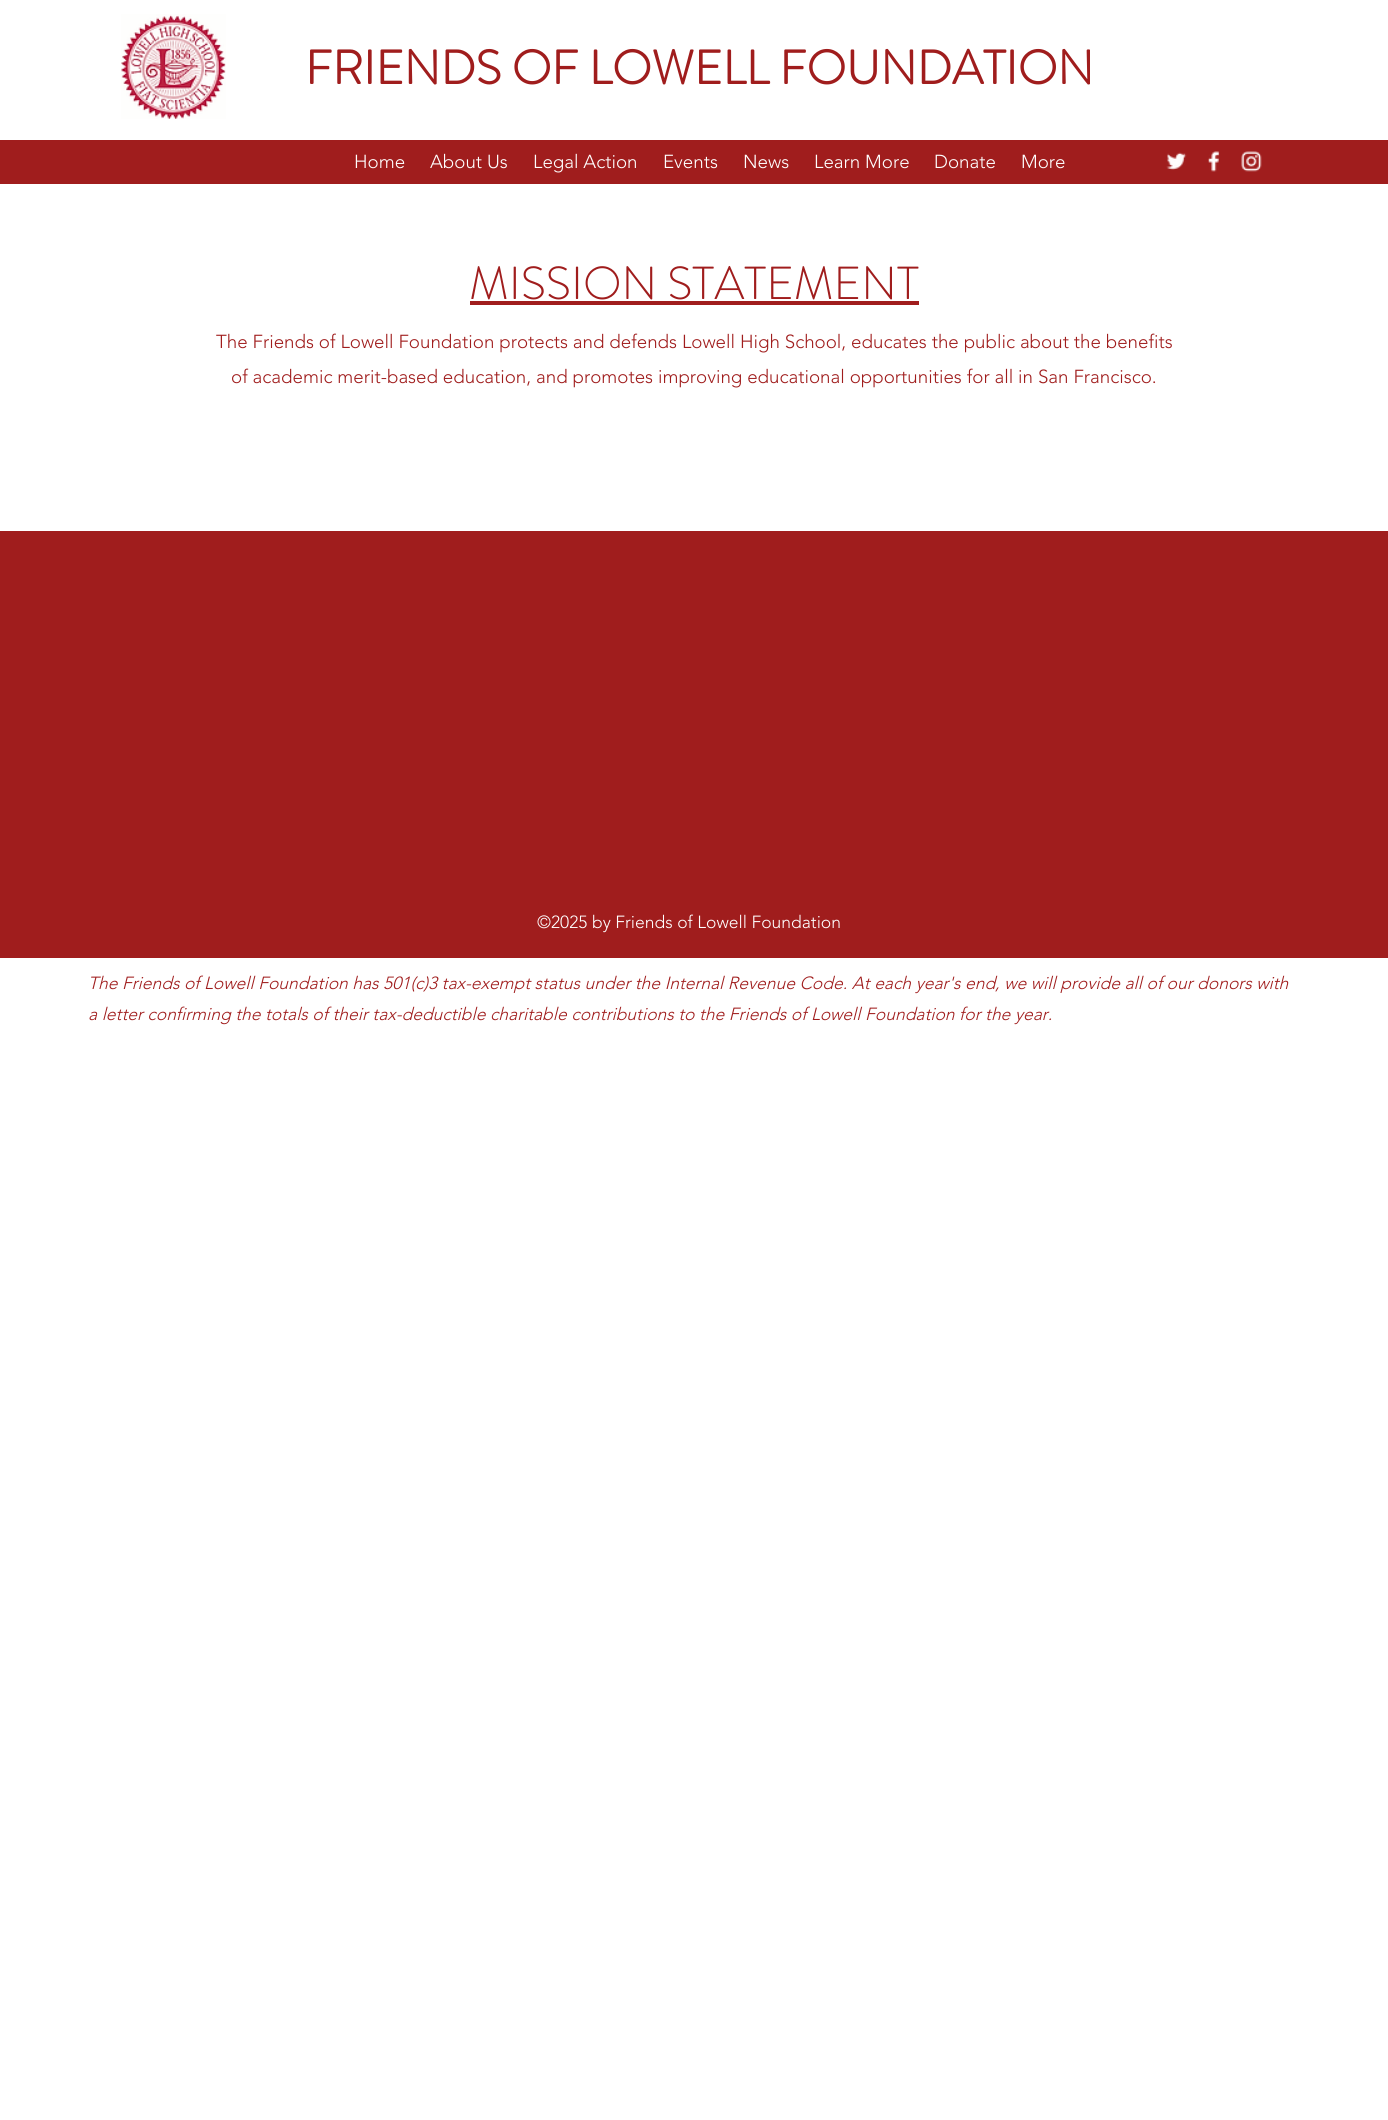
import math
import cairo

surface = cairo.ImageSurface(cairo.FORMAT_RGB24, 1388, 2120)
ctx = cairo.Context(surface)
options = cairo.FontOptions()
options.set_hint_metrics(cairo.HINT_METRICS_OFF)
options.set_hint_style(cairo.HINT_STYLE_NONE)
ctx.set_font_options(options)
ctx.set_miter_limit(4)


def picture(path, x, y, w, h):
    ctx.save()
    ctx.set_source_surface(cairo.ImageSurface.create_from_png(path), x, y)
    ctx.rectangle(x, y, w, h)
    ctx.fill()
    ctx.restore()


ctx.set_source_rgb(1, 1, 1)
ctx.paint()
picture("img1.png", 121, 14, 105, 105)
ctx.select_font_face("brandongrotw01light", cairo.FONT_SLANT_NORMAL, cairo.FONT_WEIGHT_BOLD)
ctx.set_font_size(47.5)
ctx.set_source_rgb(0.627, 0.114, 0.114)
ctx.move_to(305, 84)
ctx.show_text("FRIENDS OF LOWELL FOUNDATION")
ctx.rectangle(0, 140, 1388, 44)
ctx.fill()
ctx.select_font_face("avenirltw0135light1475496 Light")
ctx.set_font_size(18.75)
ctx.set_source_rgb(1, 1, 1)
ctx.move_to(354, 168)
ctx.show_text("Home")
ctx.move_to(430, 168)
ctx.show_text("About Us")
ctx.move_to(533, 168)
ctx.show_text("Legal Action")
ctx.move_to(663, 168)
ctx.show_text("Events")
ctx.move_to(743, 168)
ctx.show_text("News")
ctx.move_to(814, 168)
ctx.show_text("Learn More")
ctx.move_to(934, 168)
ctx.show_text("Donate")
ctx.move_to(1021, 168)
ctx.show_text("More")
picture("img2.png", 1166, 152, 21, 18)
picture("img3.png", 1208, 151, 12, 21)
picture("img4.png", 1241, 151, 21, 21)
ctx.select_font_face("brandongrotw01light Light")
ctx.set_font_size(46.25)
ctx.set_source_rgb(0.627, 0.114, 0.114)
ctx.move_to(469, 299)
ctx.show_text("MISSION STATEMENT")
ctx.rectangle(470, 301, 449, 4)
ctx.fill()
ctx.select_font_face("avenirltw0135light1475496 Light")
ctx.set_font_size(18.75)
ctx.move_to(216, 348)
ctx.show_text("The Friends of Lowell Foundation protects and defends Lowell High School, educates the public about the benefits")
ctx.move_to(231, 383)
ctx.show_text("of academic merit-based education, and promotes improving educational opportunities for all in San Francisco.")
ctx.rectangle(0, 531, 1388, 427)
ctx.fill()
ctx.set_font_size(17.5)
ctx.set_source_rgb(1, 1, 1)
ctx.move_to(537, 928)
ctx.show_text("©2025 by Friends of Lowell Foundation")
ctx.select_font_face("avenirltw0135light1475496 Light", cairo.FONT_SLANT_ITALIC)
ctx.set_source_rgb(0.627, 0.114, 0.114)
ctx.move_to(88, 989)
ctx.show_text("The Friends of Lowell Foundation has 501(c)3 tax-exempt status under the Internal Revenue Code. At each year's end, we will provide all of our donors with")
ctx.move_to(88, 1020)
ctx.show_text("a letter confirming the totals of their tax-deductible charitable contributions to the Friends of Lowell Foundation for the year.")
surface.write_to_png("page.png")
